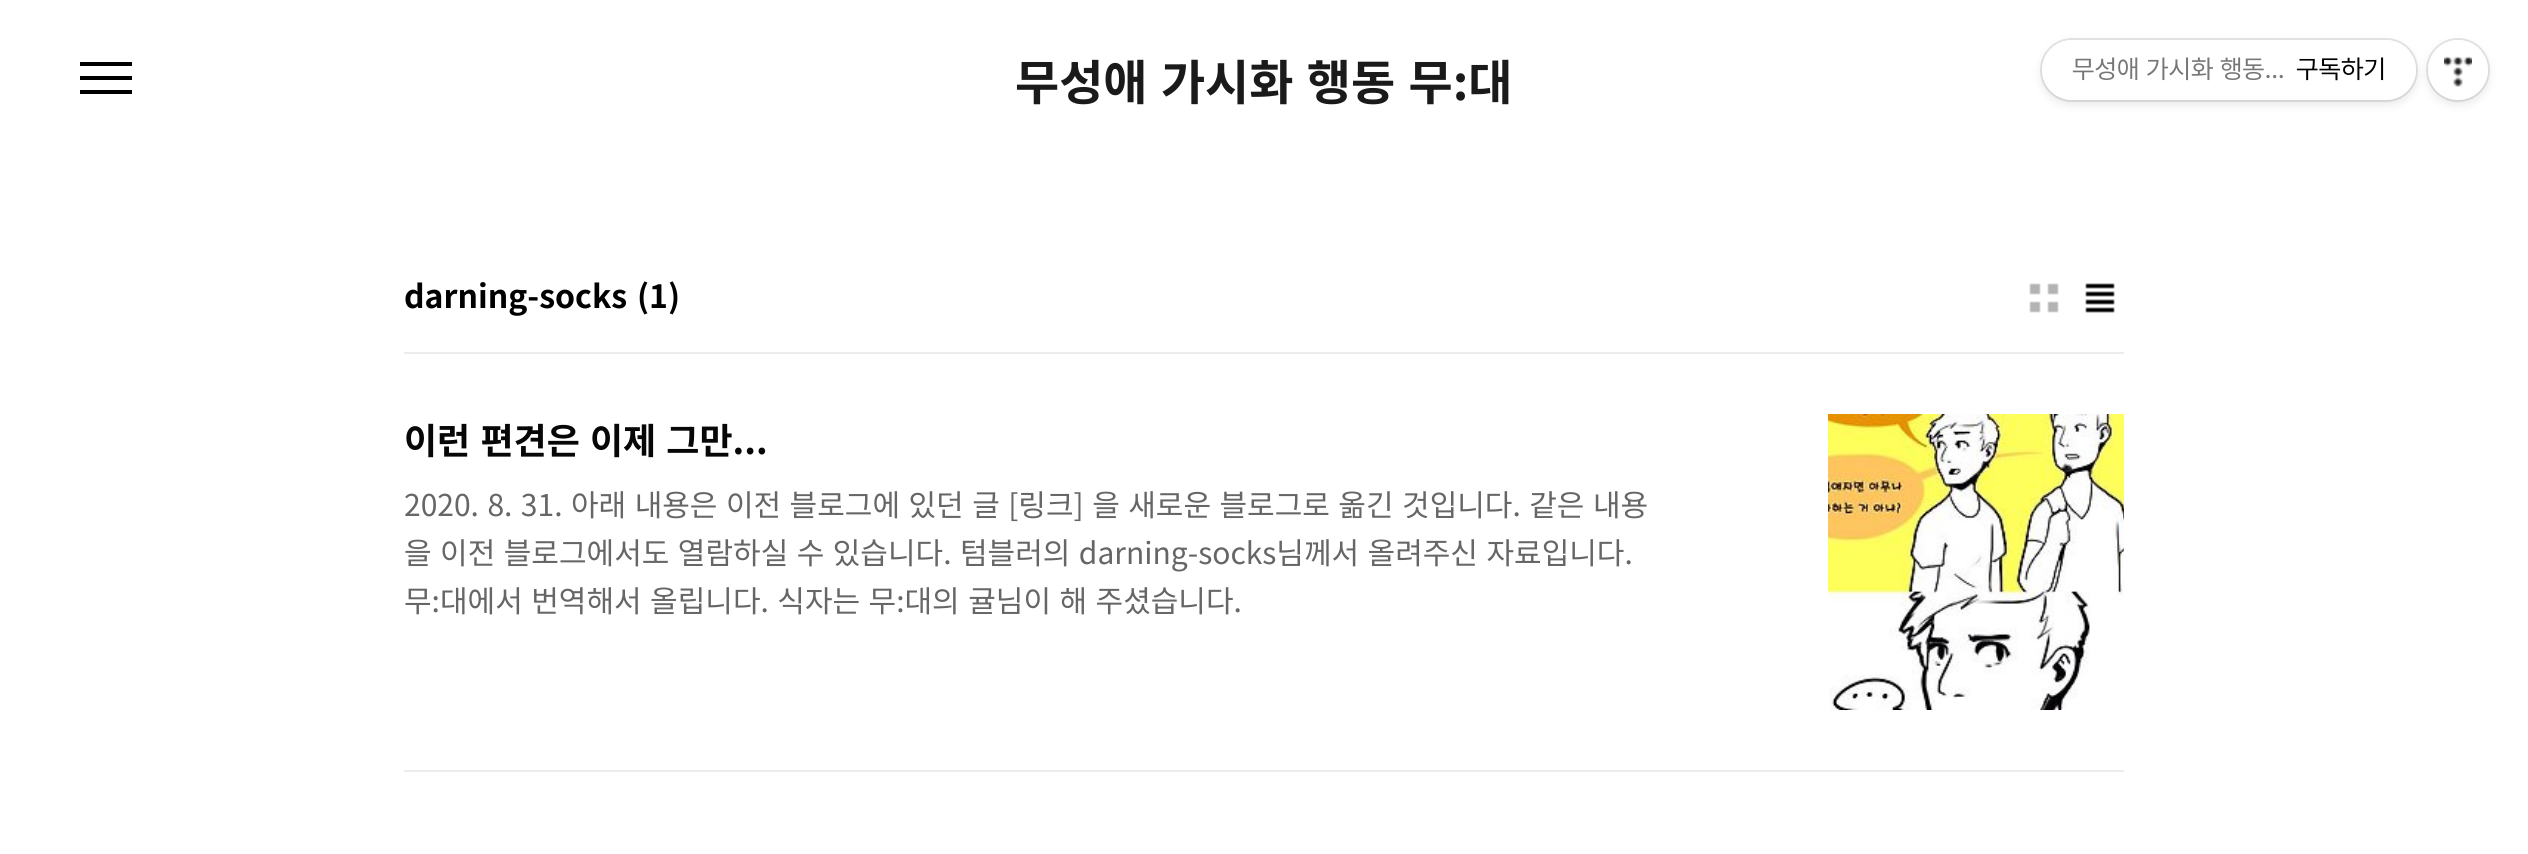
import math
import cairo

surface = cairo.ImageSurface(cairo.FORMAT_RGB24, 2528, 854)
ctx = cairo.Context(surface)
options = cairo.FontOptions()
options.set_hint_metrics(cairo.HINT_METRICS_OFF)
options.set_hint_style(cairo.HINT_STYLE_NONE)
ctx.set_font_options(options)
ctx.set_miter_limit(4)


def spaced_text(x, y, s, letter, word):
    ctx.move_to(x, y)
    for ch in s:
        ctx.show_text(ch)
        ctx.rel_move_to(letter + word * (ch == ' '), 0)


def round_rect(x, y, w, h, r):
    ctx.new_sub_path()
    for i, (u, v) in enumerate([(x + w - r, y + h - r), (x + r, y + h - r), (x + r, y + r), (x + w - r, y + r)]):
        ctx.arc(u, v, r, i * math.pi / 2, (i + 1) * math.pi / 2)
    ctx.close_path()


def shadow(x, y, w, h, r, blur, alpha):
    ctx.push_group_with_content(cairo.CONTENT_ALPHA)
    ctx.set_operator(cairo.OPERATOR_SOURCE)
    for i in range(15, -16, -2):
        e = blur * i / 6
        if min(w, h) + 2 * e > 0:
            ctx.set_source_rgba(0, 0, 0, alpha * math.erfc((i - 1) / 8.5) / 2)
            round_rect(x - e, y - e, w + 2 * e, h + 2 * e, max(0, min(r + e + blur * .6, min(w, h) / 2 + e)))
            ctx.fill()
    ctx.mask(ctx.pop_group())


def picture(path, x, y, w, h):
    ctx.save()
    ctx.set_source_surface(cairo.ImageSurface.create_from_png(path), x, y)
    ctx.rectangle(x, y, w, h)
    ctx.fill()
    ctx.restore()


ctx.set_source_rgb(1, 1, 1)
ctx.paint()
ctx.set_source_rgb(0, 0, 0)
ctx.rectangle(80, 62, 52, 4)
ctx.fill()
ctx.rectangle(80, 76, 52, 4)
ctx.fill()
ctx.rectangle(80, 90, 52, 4)
ctx.fill()
ctx.select_font_face("Noto Sans KR", cairo.FONT_SLANT_NORMAL, cairo.FONT_WEIGHT_BOLD)
ctx.set_font_size(48)
ctx.set_source_rgb(0.102, 0.102, 0.102)
spaced_text(1015, 100, "무성애 가시화 행동 무:대", 0, 2.5)
picture("img1.png", 2431, 83, 38, 16)
ctx.set_source_rgb(0.922, 0.922, 0.922)
ctx.rectangle(404, 352, 1720, 2)
ctx.fill()
ctx.set_font_size(32)
ctx.set_source_rgb(0, 0, 0)
ctx.move_to(404, 308)
ctx.show_text("darning-socks")
ctx.move_to(637, 308)
ctx.show_text("(1)")
picture("img2.png", 2029, 283, 30, 30)
picture("img3.png", 2085, 283, 30, 30)
ctx.set_source_rgb(0.922, 0.922, 0.922)
ctx.rectangle(404, 770, 1720, 2)
ctx.fill()
ctx.set_font_size(36)
ctx.set_source_rgb(0.031, 0.031, 0.031)
spaced_text(404, 454, "이런 편견은 이제 그만...", 0, 2)
picture("img4.png", 1828, 414, 296, 296)
ctx.select_font_face("Noto Sans KR")
ctx.set_font_size(30)
ctx.set_source_rgb(0.4, 0.4, 0.4)
spaced_text(404, 516, "2020. 8. 31. 아래 내용은 이전 블로그에 있던 글 [링크] 을 새로운 블로그로 옮긴 것입니다. 같은 내용", 0, 1.75)
spaced_text(404, 564, "을 이전 블로그에서도 열람하실 수 있습니다. 텀블러의 darning-socks님께서 올려주신 자료입니다.", 0, 1.75)
spaced_text(404, 612, "무:대에서 번역해서 올립니다. 식자는 무:대의 귤님이 해 주셨습니다.", 0, 1.75)
ctx.set_source_rgb(0, 0, 0)
shadow(2428, 44, 60, 60, 30, 5, 0.1)
ctx.arc(2458, 70, 31, 0, 2 * math.pi)
ctx.set_source_rgba(0, 0, 0, 0.1)
ctx.stroke()
ctx.set_source_rgb(1, 1, 1)
ctx.arc(2458, 70, 30, 0, 2 * math.pi)
ctx.fill()
ctx.set_source_rgb(0, 0, 0)
shadow(2042, 44, 374, 60, 30, 5, 0.1)
round_rect(2041, 39, 376, 62, 31)
ctx.set_source_rgba(0, 0, 0, 0.1)
ctx.stroke()
ctx.set_source_rgb(1, 1, 1)
round_rect(2042, 40, 374, 60, 30)
ctx.fill()
ctx.select_font_face("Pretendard")
ctx.set_font_size(26)
ctx.set_source_rgb(0.467, 0.467, 0.467)
ctx.move_to(2072, 78)
ctx.show_text("무성애 가시화 행동…")
ctx.set_source_rgb(0, 0, 0)
ctx.move_to(2296, 78)
ctx.show_text("구독하기")
picture("img5.png", 2444, 56, 28, 31)
surface.write_to_png("page.png")
